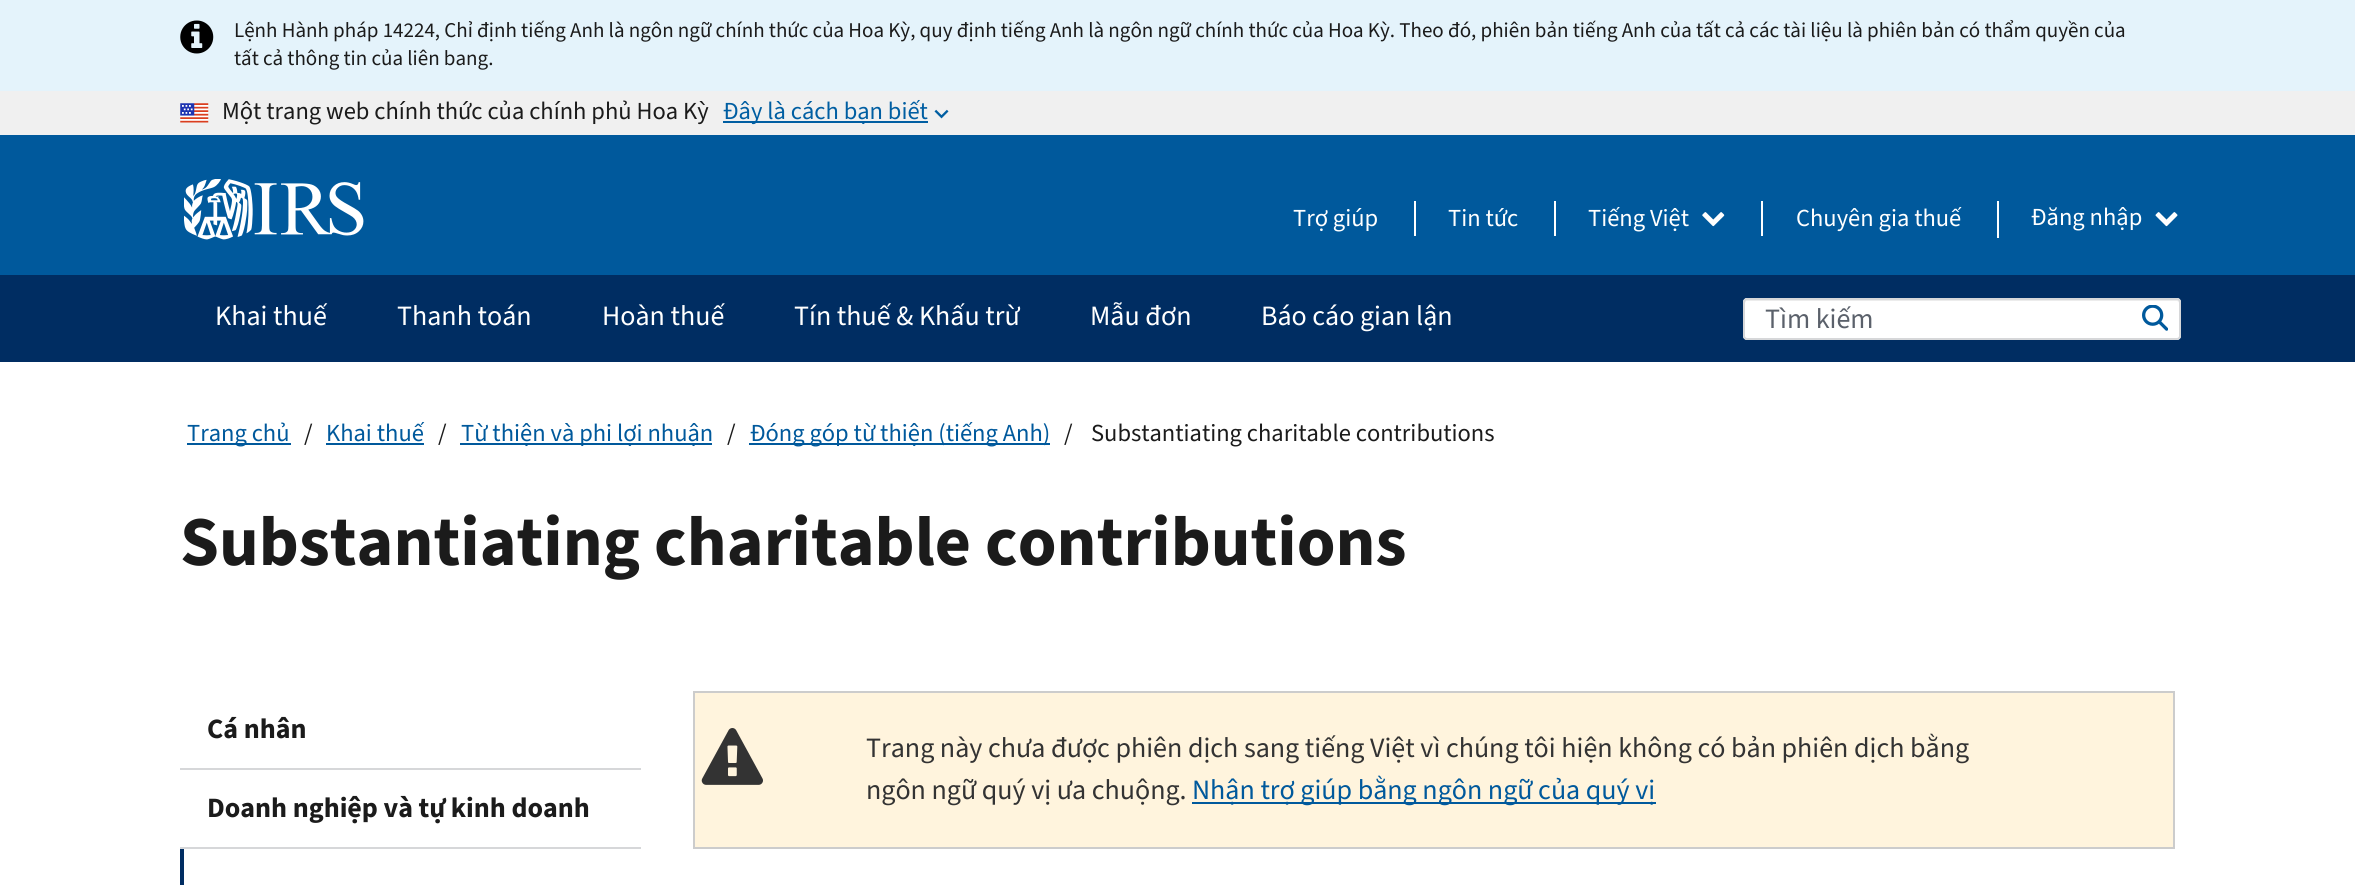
import math
import cairo

surface = cairo.ImageSurface(cairo.FORMAT_RGB24, 2355, 885)
ctx = cairo.Context(surface)
options = cairo.FontOptions()
options.set_hint_metrics(cairo.HINT_METRICS_OFF)
options.set_hint_style(cairo.HINT_STYLE_NONE)
ctx.set_font_options(options)
ctx.set_miter_limit(4)


def round_rect(x, y, w, h, r):
    ctx.new_sub_path()
    for i, (u, v) in enumerate([(x + w - r, y + h - r), (x + r, y + h - r), (x + r, y + r), (x + w - r, y + r)]):
        ctx.arc(u, v, r, i * math.pi / 2, (i + 1) * math.pi / 2)
    ctx.close_path()


def picture(path, x, y, w, h):
    ctx.save()
    ctx.set_source_surface(cairo.ImageSurface.create_from_png(path), x, y)
    ctx.rectangle(x, y, w, h)
    ctx.fill()
    ctx.restore()


ctx.set_source_rgb(1, 1, 1)
ctx.paint()
ctx.set_source_rgb(0.941, 0.941, 0.941)
ctx.rectangle(0, 91, 2355, 44)
ctx.fill()
ctx.set_source_rgb(0.894, 0.953, 0.984)
ctx.rectangle(0, 0, 2355, 91)
ctx.fill()
picture("img1.png", 180, 20, 34, 34)
ctx.select_font_face("Source Sans 3")
ctx.set_font_size(21)
ctx.set_source_rgb(0.106, 0.106, 0.106)
ctx.move_to(234, 37)
ctx.show_text("Lệnh Hành pháp 14224, Chỉ định tiếng Anh là ngôn ngữ chính thức của Hoa Kỳ, quy định tiếng Anh là ngôn ngữ chính thức của Hoa Kỳ. Theo đó, phiên bản tiếng Anh của tất cả các tài liệu là phiên bản có thẩm quyền của")
ctx.move_to(234, 65)
ctx.show_text("tất cả thông tin của liên bang.")
picture("img2.png", 180, 103, 29, 20)
ctx.set_font_size(24.5)
ctx.move_to(222, 119)
ctx.show_text("Một trang web chính thức của chính phủ Hoa Kỳ")
ctx.set_source_rgb(0, 0.369, 0.635)
ctx.rectangle(723, 121, 205, 2)
ctx.fill()
ctx.move_to(723, 119)
ctx.show_text("Đây là cách bạn biết")
picture("img3.png", 934, 109, 15, 10)
ctx.set_source_rgb(0, 0.349, 0.612)
ctx.rectangle(0, 135, 2355, 140)
ctx.fill()
picture("img4.png", 184, 179, 180, 61)
ctx.set_source_rgb(1, 1, 1)
ctx.move_to(1293, 226)
ctx.show_text("Trợ giúp")
ctx.rectangle(1414, 201, 2, 35)
ctx.fill()
ctx.move_to(1448, 226)
ctx.show_text("Tin tức")
ctx.rectangle(1554, 201, 2, 35)
ctx.fill()
ctx.move_to(1588, 226)
ctx.show_text("Tiếng Việt")
picture("img5.png", 1702, 212, 23, 15)
ctx.rectangle(1761, 201, 2, 35)
ctx.fill()
ctx.move_to(1796, 226)
ctx.show_text("Chuyên gia thuế")
ctx.rectangle(1997, 201, 2, 37)
ctx.fill()
ctx.move_to(2031, 225)
ctx.show_text("Đăng nhập")
picture("img6.png", 2155, 212, 23, 15)
ctx.set_source_rgb(0, 0.176, 0.384)
ctx.rectangle(0, 275, 2355, 87)
ctx.fill()
ctx.set_font_size(28)
ctx.set_source_rgb(1, 1, 1)
ctx.move_to(215, 325)
ctx.show_text("Khai thuế")
ctx.move_to(397, 325)
ctx.show_text("Thanh toán")
ctx.move_to(602, 325)
ctx.show_text("Hoàn thuế")
ctx.move_to(794, 325)
ctx.show_text("Tín thuế & Khấu trừ")
ctx.move_to(1090, 325)
ctx.show_text("Mẫu đơn")
ctx.move_to(1261, 325)
ctx.show_text("Báo cáo gian lận")
round_rect(1743, 298, 438, 42, 4)
ctx.fill()
ctx.set_source_rgb(0.925, 0.925, 0.925)
ctx.new_path()
ctx.move_to(1746, 301)
ctx.line_to(2177, 301)
ctx.curve_to(2178, 301, 2179, 302, 2179, 303)
ctx.line_to(2179, 300)
ctx.line_to(2177, 299)
ctx.line_to(1747, 299)
ctx.curve_to(1745, 299, 1745, 301, 1745, 303)
ctx.close_path()
ctx.fill()
round_rect(1744, 299, 436, 40, 3)
ctx.set_source_rgb(0.839, 0.843, 0.851)
ctx.stroke()
ctx.set_source_rgb(0.357, 0.38, 0.42)
ctx.move_to(1765, 328)
ctx.show_text("Tìm kiếm")
picture("img7.png", 2142, 305, 26, 26)
ctx.set_source_rgb(0, 0.349, 0.612)
ctx.rectangle(187, 443, 104, 2)
ctx.fill()
ctx.set_font_size(24.5)
ctx.move_to(187, 441)
ctx.show_text("Trang chủ")
ctx.set_source_rgb(0.106, 0.106, 0.106)
ctx.move_to(304, 441)
ctx.show_text("/")
ctx.set_source_rgb(0, 0.349, 0.612)
ctx.move_to(326, 441)
ctx.show_text("Khai thuế")
ctx.rectangle(326, 443, 98, 2)
ctx.fill()
ctx.set_source_rgb(0.106, 0.106, 0.106)
ctx.move_to(438, 441)
ctx.show_text("/")
ctx.set_source_rgb(0, 0.349, 0.612)
ctx.rectangle(460, 443, 252, 2)
ctx.fill()
ctx.move_to(461, 441)
ctx.show_text("Từ thiện và phi lợi nhuận")
ctx.set_source_rgb(0.106, 0.106, 0.106)
ctx.move_to(727, 441)
ctx.show_text("/")
ctx.set_source_rgb(0, 0.349, 0.612)
ctx.rectangle(749, 443, 301, 2)
ctx.fill()
ctx.move_to(750, 441)
ctx.show_text("Đóng góp từ thiện (tiếng Anh)")
ctx.set_source_rgb(0.106, 0.106, 0.106)
ctx.move_to(1064, 441)
ctx.show_text("/")
ctx.move_to(1091, 441)
ctx.show_text("Substantiating charitable contributions")
ctx.select_font_face("Source Sans 3", cairo.FONT_SLANT_NORMAL, cairo.FONT_WEIGHT_BOLD)
ctx.set_font_size(70)
ctx.move_to(180, 565)
ctx.show_text("Substantiating charitable contributions")
ctx.set_source_rgb(0.839, 0.843, 0.851)
ctx.rectangle(180, 768, 461, 2)
ctx.fill()
ctx.set_font_size(28)
ctx.set_source_rgb(0.106, 0.106, 0.106)
ctx.move_to(207, 738)
ctx.show_text("Cá nhân")
ctx.set_source_rgb(0.839, 0.843, 0.851)
ctx.rectangle(180, 847, 461, 2)
ctx.fill()
ctx.set_source_rgb(0.106, 0.106, 0.106)
ctx.move_to(207, 817)
ctx.show_text("Doanh nghiệp và tự kinh doanh")
ctx.set_source_rgb(0, 0.176, 0.384)
ctx.rectangle(180, 849, 4, 36)
ctx.fill()
ctx.set_source_rgb(1, 0.957, 0.867)
ctx.rectangle(694, 692, 1480, 156)
ctx.fill_preserve()
ctx.set_source_rgb(0.8, 0.8, 0.8)
ctx.stroke()
picture("img8.png", 701, 728, 62, 57)
ctx.select_font_face("Source Sans 3")
ctx.set_source_rgb(0.2, 0.2, 0.2)
ctx.move_to(866, 757)
ctx.show_text("Trang này chưa được phiên dịch sang tiếng Việt vì chúng tôi hiện không có bản phiên dịch bằng")
ctx.move_to(866, 799)
ctx.show_text("ngôn ngữ quý vị ưa chuộng.")
ctx.set_source_rgb(0, 0.349, 0.612)
ctx.rectangle(1192, 802, 464, 2)
ctx.fill()
ctx.move_to(1192, 799)
ctx.show_text("Nhận trợ giúp bằng ngôn ngữ của quý vị")
surface.write_to_png("page.png")
